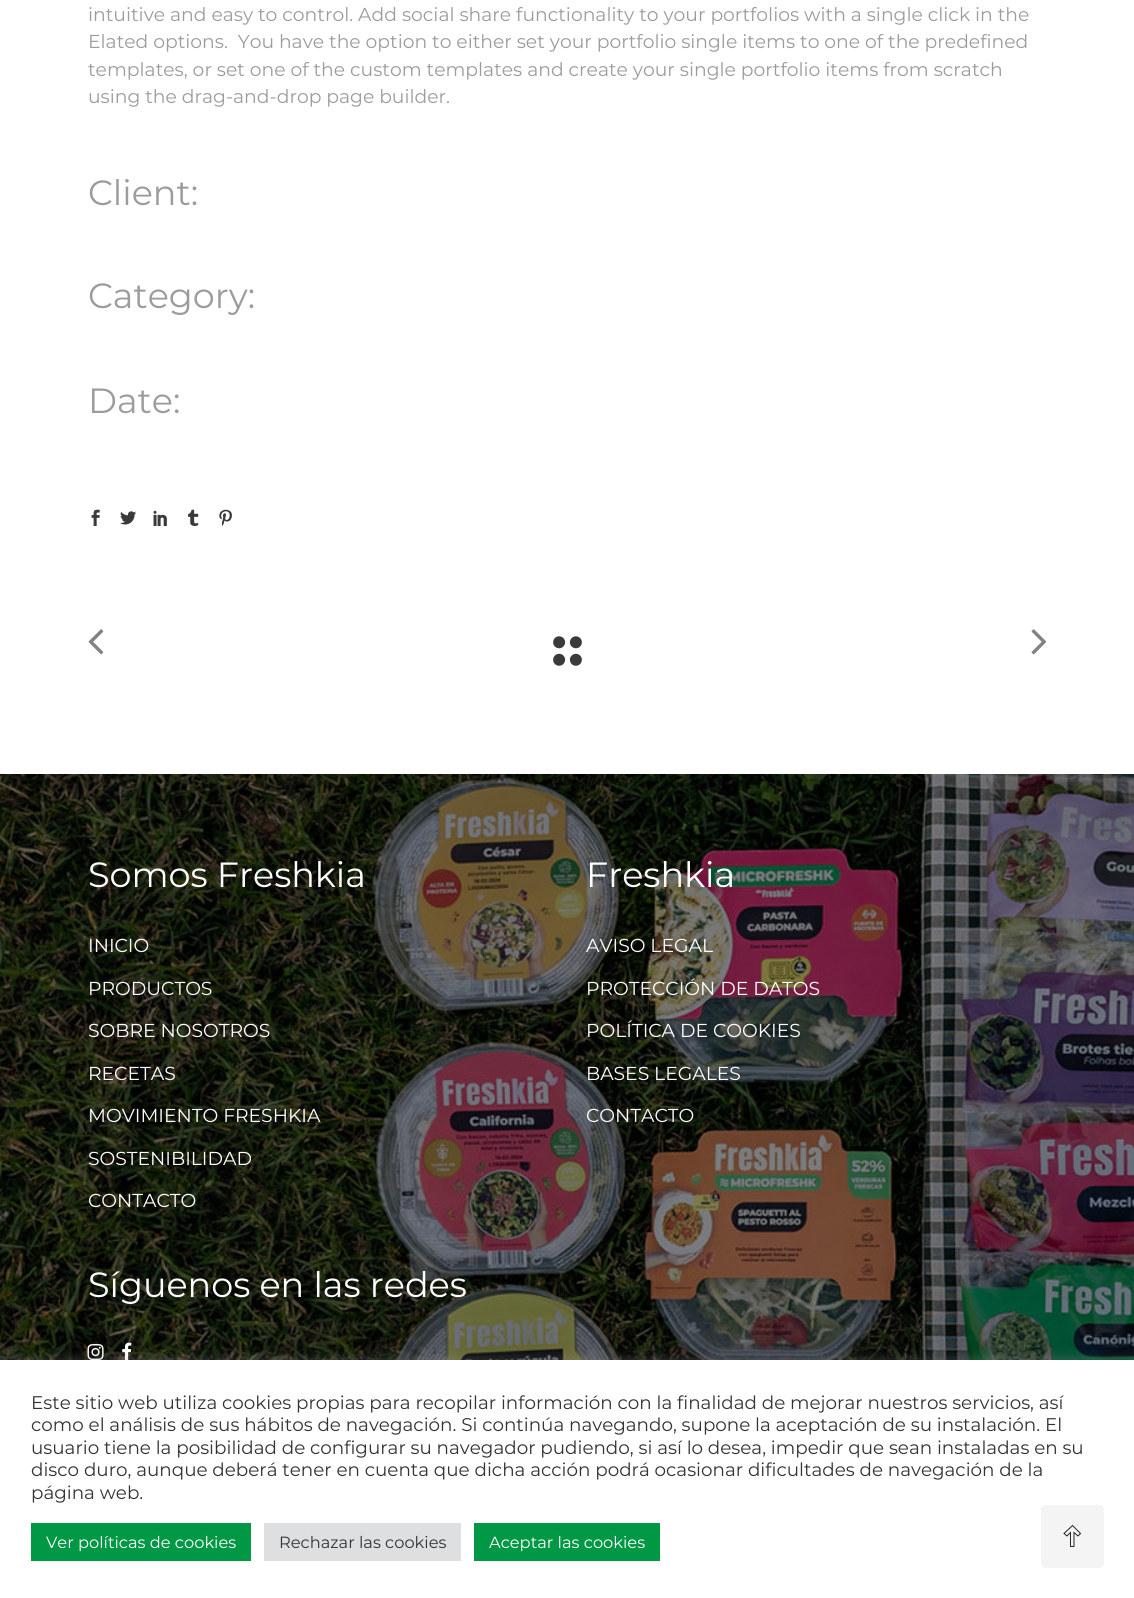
import math
import cairo

surface = cairo.ImageSurface(cairo.FORMAT_RGB24, 1134, 1598)
ctx = cairo.Context(surface)
options = cairo.FontOptions()
options.set_hint_metrics(cairo.HINT_METRICS_OFF)
options.set_hint_style(cairo.HINT_STYLE_NONE)
ctx.set_font_options(options)
ctx.set_miter_limit(4)


def round_rect(x, y, w, h, r):
    ctx.new_sub_path()
    for i, (u, v) in enumerate([(x + w - r, y + h - r), (x + r, y + h - r), (x + r, y + r), (x + w - r, y + r)]):
        ctx.arc(u, v, r, i * math.pi / 2, (i + 1) * math.pi / 2)
    ctx.close_path()


def shadow(x, y, w, h, r, blur, alpha):
    ctx.push_group_with_content(cairo.CONTENT_ALPHA)
    ctx.set_operator(cairo.OPERATOR_SOURCE)
    for i in range(15, -16, -2):
        e = blur * i / 6
        if min(w, h) + 2 * e > 0:
            ctx.set_source_rgba(0, 0, 0, alpha * math.erfc((i - 1) / 8.5) / 2)
            round_rect(x - e, y - e, w + 2 * e, h + 2 * e, max(0, min(r + e + blur * .6, min(w, h) / 2 + e)))
            ctx.fill()
    ctx.mask(ctx.pop_group())


def picture(path, x, y, w, h):
    ctx.save()
    ctx.set_source_surface(cairo.ImageSurface.create_from_png(path), x, y)
    ctx.rectangle(x, y, w, h)
    ctx.fill()
    ctx.restore()


ctx.set_source_rgb(1, 1, 1)
ctx.paint()
ctx.select_font_face("Montserrat")
ctx.set_font_size(18.75)
ctx.set_source_rgb(0.612, 0.612, 0.608)
ctx.move_to(88, 21)
ctx.show_text("intuitive and easy to control. Add social share functionality to your portfolios with a single click in the")
ctx.move_to(88, 48)
ctx.show_text("Elated options.  You have the option to either set your portfolio single items to one of the predefined")
ctx.move_to(88, 76)
ctx.show_text("templates, or set one of the custom templates and create your single portfolio items from scratch")
ctx.move_to(88, 103)
ctx.show_text("using the drag-and-drop page builder.")
ctx.set_font_size(35)
ctx.move_to(88, 205)
ctx.show_text("Client:")
ctx.move_to(88, 308)
ctx.show_text("Category:")
ctx.move_to(88, 413)
ctx.show_text("Date:")
picture("img1.png", 91, 509, 9, 17)
picture("img2.png", 120, 511, 16, 14)
picture("img3.png", 153, 510, 14, 16)
picture("img4.png", 188, 509, 11, 17)
picture("img5.png", 219, 509, 13, 17)
picture("img6.png", 88, 629, 16, 26)
picture("img7.png", 553, 636, 29, 13)
picture("img8.png", 553, 653, 29, 13)
picture("img9.png", 1031, 629, 16, 26)
picture("img10.png", 0, 774, 1134, 586)
ctx.set_source_rgb(1, 1, 1)
ctx.move_to(88, 887)
ctx.show_text("Somos Freshkia")
ctx.set_font_size(18.75)
ctx.move_to(88, 952)
ctx.show_text("INICIO")
ctx.move_to(88, 995)
ctx.show_text("PRODUCTOS")
ctx.move_to(88, 1037)
ctx.show_text("SOBRE NOSOTROS")
ctx.move_to(88, 1080)
ctx.show_text("RECETAS")
ctx.move_to(88, 1122)
ctx.show_text("MOVIMIENTO FRESHKIA")
ctx.move_to(88, 1165)
ctx.show_text("SOSTENIBILIDAD")
ctx.move_to(88, 1207)
ctx.show_text("CONTACTO")
ctx.set_font_size(35)
ctx.move_to(586, 887)
ctx.show_text("Freshkia")
ctx.set_font_size(18.75)
ctx.move_to(586, 952)
ctx.show_text("AVISO LEGAL")
ctx.move_to(586, 995)
ctx.show_text("PROTECCIÓN DE DATOS")
ctx.move_to(586, 1037)
ctx.show_text("POLÍTICA DE COOKIES")
ctx.move_to(586, 1080)
ctx.show_text("BASES LEGALES")
ctx.move_to(586, 1122)
ctx.show_text("CONTACTO")
ctx.set_font_size(35)
ctx.move_to(88, 1297)
ctx.show_text("Síguenos en las redes")
picture("img11.png", 87, 1344, 17, 16)
picture("img12.png", 122, 1342, 10, 18)
ctx.set_source_rgb(0.675, 0.671, 0.671)
shadow(0, 1359, 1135, 239, 0, 6, 0.3)
ctx.set_source_rgb(1, 1, 1)
ctx.rectangle(0, 1360, 1134, 238)
ctx.fill()
ctx.set_font_size(18.33)
ctx.set_source_rgb(0.2, 0.2, 0.2)
ctx.move_to(31, 1409)
ctx.show_text("Este sitio web utiliza cookies propias para recopilar información con la finalidad de mejorar nuestros servicios, así")
ctx.move_to(31, 1431)
ctx.show_text("como el análisis de sus hábitos de navegación. Si continúa navegando, supone la aceptación de su instalación. El")
ctx.move_to(31, 1454)
ctx.show_text("usuario tiene la posibilidad de configurar su navegador pudiendo, si así lo desea, impedir que sean instaladas en su")
ctx.move_to(31, 1476)
ctx.show_text("disco duro, aunque deberá tener en cuenta que dicha acción podrá ocasionar dificultades de navegación de la")
ctx.move_to(31, 1499)
ctx.show_text("página web.")
ctx.set_source_rgb(0, 0.596, 0.271)
ctx.rectangle(31, 1523, 220, 38)
ctx.fill()
ctx.set_font_size(16.25)
ctx.set_source_rgb(1, 1, 1)
ctx.move_to(46, 1548)
ctx.show_text("Ver políticas de cookies")
ctx.set_source_rgb(0.871, 0.875, 0.878)
ctx.rectangle(264, 1523, 197, 38)
ctx.fill()
ctx.set_source_rgb(0.2, 0.2, 0.2)
ctx.move_to(279, 1548)
ctx.show_text("Rechazar las cookies")
ctx.set_source_rgb(0, 0.596, 0.271)
ctx.rectangle(474, 1523, 186, 38)
ctx.fill()
ctx.set_source_rgb(1, 1, 1)
ctx.move_to(489, 1548)
ctx.show_text("Aceptar las cookies")
ctx.set_source_rgb(0.957, 0.957, 0.957)
round_rect(1041, 1505, 63, 63, 5)
ctx.fill()
ctx.new_path()
ctx.move_to(1070.5, 1546.5)
ctx.line_to(1070.5, 1532.5)
ctx.line_to(1067, 1536)
ctx.line_to(1064, 1533.5)
ctx.line_to(1072.5, 1525.5)
ctx.line_to(1080.5, 1533.5)
ctx.line_to(1078, 1536)
ctx.line_to(1074, 1532.5)
ctx.line_to(1074, 1546.5)
ctx.close_path()
ctx.set_source_rgb(0.067, 0.067, 0.067)
ctx.set_line_width(0.9)
ctx.stroke()
surface.write_to_png("page.png")
